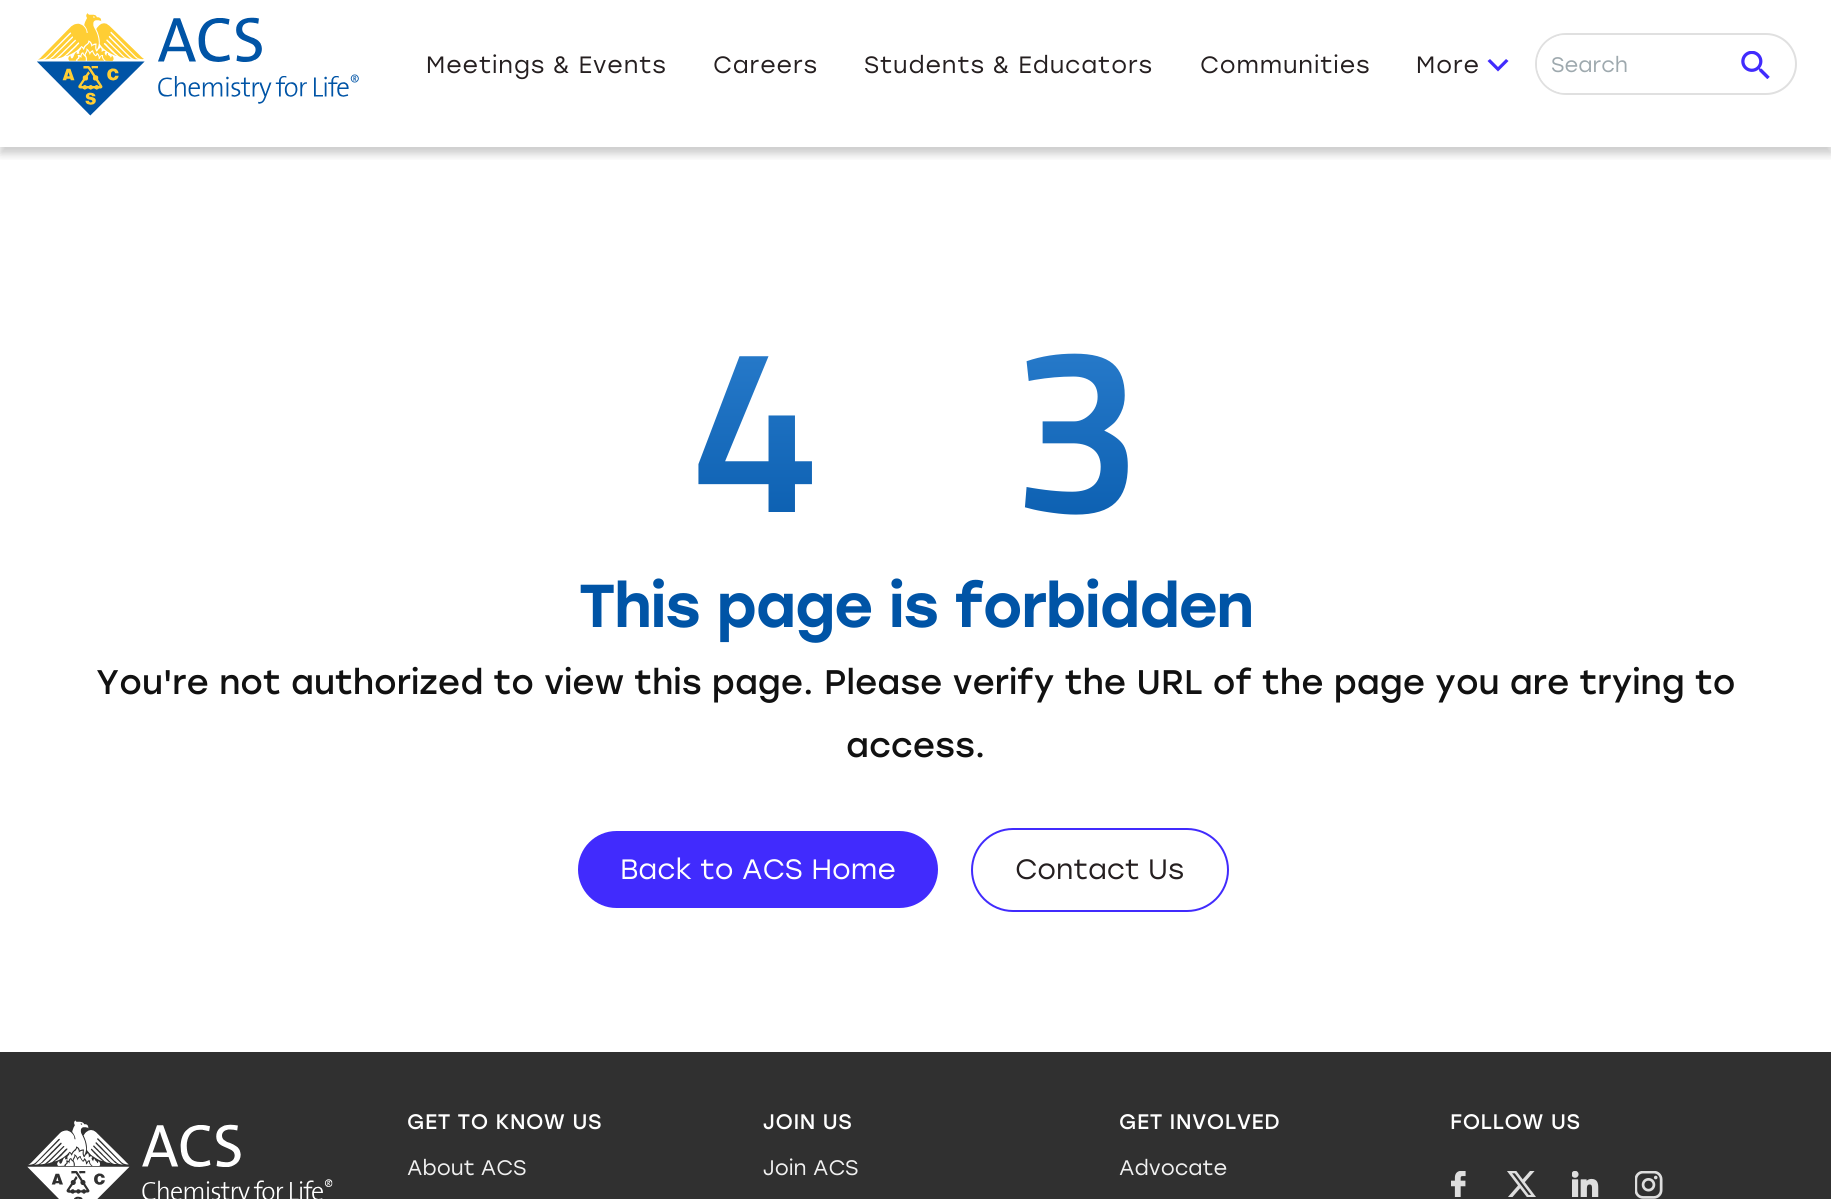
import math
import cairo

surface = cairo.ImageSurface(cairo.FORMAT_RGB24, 1831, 1199)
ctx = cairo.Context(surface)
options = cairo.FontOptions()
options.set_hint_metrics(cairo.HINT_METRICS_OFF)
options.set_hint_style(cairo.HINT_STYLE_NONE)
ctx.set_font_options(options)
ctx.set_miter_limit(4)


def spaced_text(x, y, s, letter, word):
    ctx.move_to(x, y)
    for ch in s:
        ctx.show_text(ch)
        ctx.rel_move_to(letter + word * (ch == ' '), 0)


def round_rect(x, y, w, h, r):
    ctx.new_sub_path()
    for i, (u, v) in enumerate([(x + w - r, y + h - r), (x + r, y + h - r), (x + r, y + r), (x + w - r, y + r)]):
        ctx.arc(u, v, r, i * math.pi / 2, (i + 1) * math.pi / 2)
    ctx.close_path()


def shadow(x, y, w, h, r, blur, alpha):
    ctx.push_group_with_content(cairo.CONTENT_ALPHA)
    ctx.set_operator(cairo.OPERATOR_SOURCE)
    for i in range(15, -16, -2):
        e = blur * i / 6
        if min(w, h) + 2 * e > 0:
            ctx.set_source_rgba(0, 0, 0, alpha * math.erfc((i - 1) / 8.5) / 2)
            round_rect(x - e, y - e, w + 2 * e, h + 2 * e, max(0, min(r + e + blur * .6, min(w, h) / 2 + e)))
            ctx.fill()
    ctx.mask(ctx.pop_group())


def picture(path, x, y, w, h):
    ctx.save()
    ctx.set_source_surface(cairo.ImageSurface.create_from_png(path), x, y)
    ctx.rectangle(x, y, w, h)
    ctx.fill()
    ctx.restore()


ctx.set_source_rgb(1, 1, 1)
ctx.paint()
ctx.save()
ctx.rectangle(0, 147, 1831, 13)
ctx.clip()
ctx.set_source_rgb(0, 0, 0)
shadow(0, -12, 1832, 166, 0, 4.5, 0.2)
ctx.restore()
picture("img1.png", 37, 13, 322, 103)
ctx.select_font_face("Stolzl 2")
ctx.set_font_size(23.6)
ctx.set_source_rgb(0.145, 0.122, 0.125)
spaced_text(426, 73, "Meetings & Events", 0.9, 0)
spaced_text(713, 73, "Careers", 0.9, 0)
spaced_text(864, 73, "Students & Educators", 0.9, 0)
spaced_text(1200, 73, "Communities", 0.9, 0)
ctx.set_source_rgb(0.255, 0.169, 0.992)
ctx.set_fill_rule(cairo.FILL_RULE_EVEN_ODD)
ctx.new_path()
ctx.move_to(1506, 59)
ctx.line_to(1498, 67)
ctx.line_to(1490, 59)
ctx.line_to(1487.5, 61)
ctx.line_to(1498, 71.5)
ctx.line_to(1508.5, 61)
ctx.close_path()
ctx.fill()
ctx.set_source_rgb(0.145, 0.122, 0.125)
spaced_text(1416, 73, "More", 0.9, 0)
round_rect(1536, 34, 260, 60, 30)
ctx.set_source_rgb(0.878, 0.878, 0.878)
ctx.stroke()
ctx.set_source_rgb(1, 1, 1)
round_rect(1537, 35, 204, 58, 29)
ctx.fill()
ctx.set_font_size(21)
ctx.set_source_rgb(0.62, 0.663, 0.682)
ctx.move_to(1551, 72)
ctx.show_text("Search")
picture("img2.png", 1741, 51, 29, 28)
ctx.select_font_face("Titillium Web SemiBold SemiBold")
ctx.set_font_size(236)
gradient = cairo.LinearGradient(755, 244, 755, 603)
gradient.add_color_stop_rgba(0, 0.212, 0.537, 0.847, 1)
gradient.add_color_stop_rgba(1, 0, 0.329, 0.651, 1)
ctx.set_source(gradient)
ctx.move_to(689, 512)
ctx.show_text("4")
gradient = cairo.LinearGradient(1077, 244, 1077, 603)
gradient.add_color_stop_rgba(0, 0.212, 0.537, 0.847, 1)
gradient.add_color_stop_rgba(1, 0, 0.329, 0.651, 1)
ctx.set_source(gradient)
ctx.move_to(1011, 512)
ctx.show_text("3")
ctx.select_font_face("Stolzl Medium")
ctx.set_font_size(60.4)
ctx.set_source_rgb(0, 0.329, 0.651)
spaced_text(579, 627, "This page is forbidden", -1.25, 0)
ctx.select_font_face("Stolzl")
ctx.set_font_size(34.1)
ctx.set_source_rgb(0.067, 0.067, 0.067)
ctx.move_to(96, 694)
ctx.show_text("You're not authorized to view this page. Please verify the URL of the page you are trying to")
ctx.move_to(846, 757)
ctx.show_text("access.")
ctx.set_source_rgb(0.255, 0.169, 0.992)
round_rect(578, 831, 360, 77, 38.5)
ctx.fill()
ctx.select_font_face("Stolzl 2")
ctx.set_font_size(28)
ctx.set_source_rgb(1, 1, 1)
ctx.move_to(620, 879)
ctx.show_text("Back to ACS Home")
round_rect(972, 829, 256, 82, 41)
ctx.set_source_rgb(0.255, 0.169, 0.992)
ctx.stroke()
ctx.set_source_rgb(0.145, 0.122, 0.125)
ctx.move_to(1015, 879)
ctx.show_text("Contact Us")
ctx.set_source_rgb(0.188, 0.188, 0.188)
ctx.rectangle(0, 1052, 1831, 147)
ctx.fill()
picture("img3.png", 27, 1120, 306, 79)
ctx.select_font_face("Stolzl")
ctx.set_font_size(21)
ctx.set_source_rgb(1, 1, 1)
spaced_text(407, 1129, "GET TO KNOW US", 0.5, 0)
ctx.select_font_face("Stolzl 2")
ctx.set_source_rgb(0.941, 0.941, 0.941)
ctx.move_to(407, 1175)
ctx.show_text("About ACS")
ctx.select_font_face("Stolzl")
ctx.set_source_rgb(1, 1, 1)
spaced_text(763, 1129, "JOIN US", 0.5, 0)
ctx.select_font_face("Stolzl 2")
ctx.set_source_rgb(0.941, 0.941, 0.941)
ctx.move_to(763, 1175)
ctx.show_text("Join ACS")
ctx.select_font_face("Stolzl")
ctx.set_source_rgb(1, 1, 1)
spaced_text(1119, 1129, "GET INVOLVED", 0.5, 0)
ctx.select_font_face("Stolzl 2")
ctx.set_source_rgb(0.941, 0.941, 0.941)
ctx.move_to(1119, 1175)
ctx.show_text("Advocate")
ctx.select_font_face("Stolzl")
ctx.set_source_rgb(1, 1, 1)
spaced_text(1450, 1129, "FOLLOW US", 0.5, 0)
picture("img4.png", 1451, 1171, 15, 26)
picture("img5.png", 1507, 1171, 29, 26)
picture("img6.png", 1572, 1171, 27, 26)
picture("img7.png", 1635, 1171, 28, 28)
surface.write_to_png("page.png")
